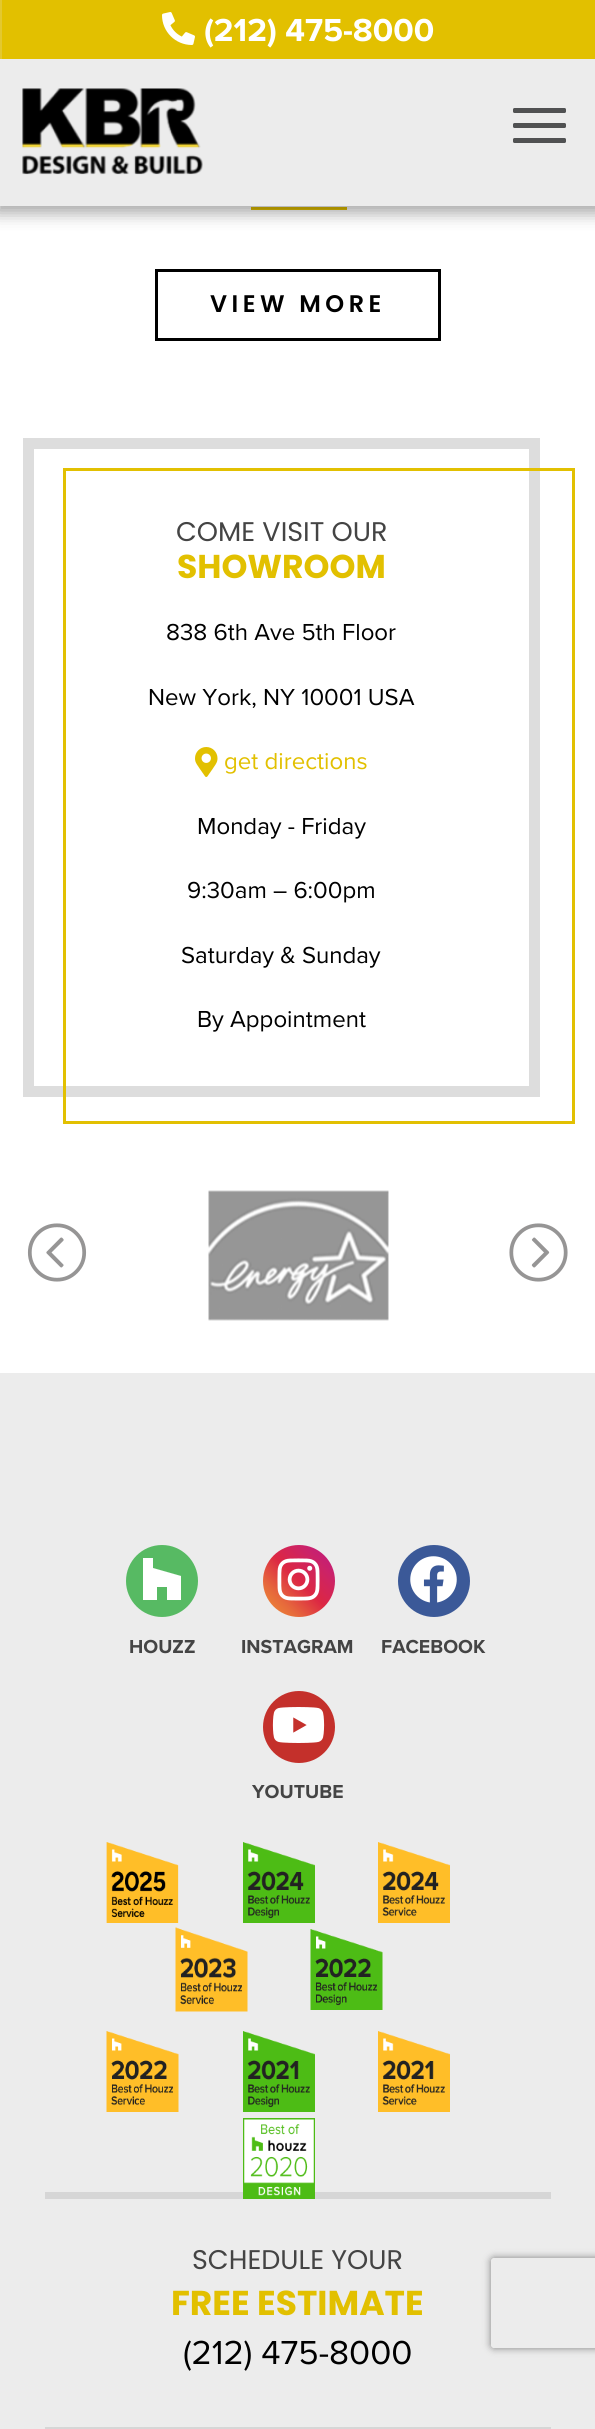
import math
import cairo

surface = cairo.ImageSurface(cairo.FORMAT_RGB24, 595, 2429)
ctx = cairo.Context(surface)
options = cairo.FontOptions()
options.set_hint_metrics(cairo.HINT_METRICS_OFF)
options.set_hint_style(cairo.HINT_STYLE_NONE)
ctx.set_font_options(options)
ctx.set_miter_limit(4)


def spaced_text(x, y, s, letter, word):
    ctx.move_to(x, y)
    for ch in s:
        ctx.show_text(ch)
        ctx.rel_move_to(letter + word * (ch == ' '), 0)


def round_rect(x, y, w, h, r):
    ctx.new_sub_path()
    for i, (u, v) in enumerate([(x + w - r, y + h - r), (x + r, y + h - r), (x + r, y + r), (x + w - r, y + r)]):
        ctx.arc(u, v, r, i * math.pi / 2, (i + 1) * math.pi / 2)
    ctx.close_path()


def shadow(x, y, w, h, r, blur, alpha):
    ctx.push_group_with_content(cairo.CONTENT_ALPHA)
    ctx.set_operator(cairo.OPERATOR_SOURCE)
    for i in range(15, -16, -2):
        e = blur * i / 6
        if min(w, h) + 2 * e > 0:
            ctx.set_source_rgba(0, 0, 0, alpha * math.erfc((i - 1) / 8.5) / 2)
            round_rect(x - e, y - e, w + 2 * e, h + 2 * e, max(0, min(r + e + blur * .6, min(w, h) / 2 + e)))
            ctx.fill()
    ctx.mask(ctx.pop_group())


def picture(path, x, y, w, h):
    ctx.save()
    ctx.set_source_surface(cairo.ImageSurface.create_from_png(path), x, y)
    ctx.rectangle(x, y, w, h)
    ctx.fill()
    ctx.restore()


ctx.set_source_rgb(1, 1, 1)
ctx.paint()
ctx.set_source_rgb(0.886, 0.753, 0)
ctx.rectangle(251, 207, 96, 3)
ctx.fill()
ctx.set_source_rgb(0, 0, 0)
shadow(-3, 2, 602, 211, 0, 8, 0.35)
ctx.set_source_rgb(0.922, 0.922, 0.922)
ctx.rectangle(0, 59, 595, 147)
ctx.fill()
ctx.set_source_rgb(0.89, 0.784, 0.184)
ctx.rectangle(0, 0, 2, 59)
ctx.fill()
ctx.set_source_rgb(0.886, 0.753, 0)
ctx.rectangle(2, 0, 593, 59)
ctx.fill()
picture("img1.png", 162, 12, 33, 33)
ctx.select_font_face("Proxima Nova", cairo.FONT_SLANT_NORMAL, cairo.FONT_WEIGHT_BOLD)
ctx.set_font_size(33)
ctx.set_source_rgb(1, 1, 1)
ctx.move_to(204, 41)
ctx.show_text("(212) 475-8000")
picture("img2.png", 22, 88, 181, 87)
ctx.set_source_rgb(0.314, 0.318, 0.322)
round_rect(513, 123, 53, 5, 1.5)
ctx.fill()
round_rect(513, 108, 53, 5, 1.5)
ctx.fill()
round_rect(513, 138, 53, 5, 1.5)
ctx.fill()
ctx.rectangle(156.5, 270.5, 283, 69)
ctx.set_source_rgb(0, 0, 0)
ctx.set_line_width(3)
ctx.stroke()
ctx.select_font_face("Poppins SemiBold")
ctx.set_font_size(24)
spaced_text(210, 312, "VIEW MORE", 4.5, 0)
ctx.rectangle(28.5, 443.5, 506, 648)
ctx.set_source_rgb(0.867, 0.867, 0.867)
ctx.set_line_width(11)
ctx.stroke()
ctx.rectangle(64.5, 469.5, 509, 653)
ctx.set_source_rgb(0.886, 0.753, 0.004)
ctx.set_line_width(3)
ctx.stroke()
ctx.select_font_face("Poppins")
ctx.set_font_size(27)
ctx.set_source_rgb(0.267, 0.267, 0.267)
ctx.move_to(176, 541)
ctx.show_text("COME VISIT OUR")
ctx.select_font_face("Poppins", cairo.FONT_SLANT_NORMAL, cairo.FONT_WEIGHT_BOLD)
ctx.set_font_size(33)
ctx.set_source_rgb(0.886, 0.753, 0)
ctx.move_to(177, 578)
ctx.show_text("SHOWROOM")
ctx.select_font_face("Proxima Nova")
ctx.set_font_size(24)
ctx.set_source_rgb(0, 0, 0)
ctx.move_to(166, 640)
ctx.show_text("838 6th Ave 5th Floor")
ctx.move_to(148, 705)
ctx.show_text("New York, NY 10001 USA")
picture("img3.png", 195, 747, 23, 30)
ctx.set_source_rgb(0.886, 0.753, 0)
ctx.move_to(224, 769)
ctx.show_text("get directions")
ctx.set_source_rgb(0, 0, 0)
ctx.move_to(197, 834)
ctx.show_text("Monday - Friday")
ctx.move_to(187, 898)
ctx.show_text("9:30am – 6:00pm")
ctx.move_to(181, 963)
ctx.show_text("Saturday & Sunday")
ctx.move_to(197, 1027)
ctx.show_text("By Appointment")
picture("img4.png", 27, 1223, 60, 59)
picture("img5.png", 208, 1190, 181, 131)
picture("img6.png", 509, 1223, 59, 59)
ctx.set_source_rgb(0.922, 0.922, 0.922)
ctx.rectangle(0, 1373, 595, 1056)
ctx.fill()
ctx.set_source_rgb(0.341, 0.729, 0.388)
ctx.arc(162, 1581, 36, 0, 2 * math.pi)
ctx.fill()
ctx.set_source_rgb(1, 1, 1)
ctx.new_path()
ctx.move_to(167, 1587)
ctx.line_to(157, 1587)
ctx.line_to(157, 1600)
ctx.line_to(143, 1600)
ctx.line_to(143, 1558)
ctx.line_to(153, 1558)
ctx.line_to(153, 1568)
ctx.line_to(181, 1576)
ctx.line_to(181, 1600)
ctx.line_to(167, 1600)
ctx.close_path()
ctx.fill()
ctx.select_font_face("Proxima Nova", cairo.FONT_SLANT_NORMAL, cairo.FONT_WEIGHT_BOLD)
ctx.set_font_size(19.5)
ctx.set_source_rgb(0.267, 0.267, 0.267)
ctx.move_to(129, 1653)
ctx.show_text("HOUZZ")
gradient = cairo.LinearGradient(263, 1617, 335, 1545)
gradient.add_color_stop_rgba(0, 0.941, 0.58, 0.2, 1)
gradient.add_color_stop_rgba(0.25, 0.902, 0.408, 0.235, 1)
gradient.add_color_stop_rgba(0.5, 0.863, 0.153, 0.263, 1)
gradient.add_color_stop_rgba(0.75, 0.8, 0.137, 0.4, 1)
gradient.add_color_stop_rgba(1, 0.737, 0.094, 0.533, 1)
ctx.set_source(gradient)
ctx.new_path()
ctx.arc(299, 1581, 36, 0, 2 * math.pi)
ctx.fill()
picture("img7.png", 277, 1558, 43, 43)
ctx.set_source_rgb(0.267, 0.267, 0.267)
ctx.move_to(241, 1653)
ctx.show_text("INSTAGRAM")
ctx.set_source_rgb(0.231, 0.349, 0.596)
ctx.new_path()
ctx.arc(434, 1581, 36, 0, 2 * math.pi)
ctx.fill()
picture("img8.png", 410, 1556, 47, 47)
ctx.set_source_rgb(0.267, 0.267, 0.267)
ctx.move_to(381, 1653)
ctx.show_text("FACEBOOK")
ctx.set_source_rgb(0.769, 0.188, 0.169)
ctx.new_path()
ctx.arc(299, 1727, 36, 0, 2 * math.pi)
ctx.fill()
picture("img9.png", 272, 1707, 53, 36)
ctx.set_source_rgb(0.267, 0.267, 0.267)
ctx.move_to(252, 1798)
ctx.show_text("YOUTUBE")
picture("img10.png", 106, 1842, 73, 81)
picture("img11.png", 243, 1842, 72, 81)
picture("img12.png", 378, 1842, 72, 81)
picture("img13.png", 175, 1927, 73, 85)
picture("img14.png", 310, 1929, 73, 81)
picture("img15.png", 106, 2031, 73, 81)
picture("img16.png", 243, 2031, 72, 81)
picture("img17.png", 378, 2031, 72, 81)
ctx.set_source_rgb(0.839, 0.839, 0.839)
ctx.rectangle(45, 2192, 506, 7)
ctx.fill()
picture("img18.png", 243, 2118, 72, 81)
ctx.rectangle(45, 2427, 506, 2)
ctx.fill()
ctx.select_font_face("Poppins")
ctx.set_font_size(27)
ctx.set_source_rgb(0.267, 0.267, 0.267)
ctx.move_to(192, 2269)
ctx.show_text("SCHEDULE YOUR")
ctx.select_font_face("Poppins", cairo.FONT_SLANT_NORMAL, cairo.FONT_WEIGHT_BOLD)
ctx.set_font_size(34.5)
ctx.set_source_rgb(0.886, 0.753, 0)
ctx.move_to(171, 2315)
ctx.show_text("FREE ESTIMATE")
ctx.select_font_face("Proxima Nova")
ctx.set_source_rgb(0, 0, 0)
ctx.move_to(183, 2364)
ctx.show_text("(212) 475-8000")
ctx.save()
ctx.set_fill_rule(cairo.FILL_RULE_EVEN_ODD)
ctx.new_path()
ctx.move_to(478, 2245)
ctx.line_to(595, 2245)
ctx.line_to(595, 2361)
ctx.line_to(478, 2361)
ctx.close_path()
ctx.move_to(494, 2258)
ctx.line_to(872, 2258)
ctx.curve_to(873.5, 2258, 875, 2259.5, 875, 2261)
ctx.line_to(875, 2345)
ctx.curve_to(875, 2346.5, 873.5, 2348, 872, 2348)
ctx.line_to(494, 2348)
ctx.curve_to(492.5, 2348, 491, 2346.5, 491, 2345)
ctx.line_to(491, 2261)
ctx.curve_to(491, 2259.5, 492.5, 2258, 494, 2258)
ctx.close_path()
ctx.clip()
ctx.set_source_rgb(0.502, 0.502, 0.502)
shadow(491, 2258, 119, 90, 3, 4, 1)
ctx.restore()
surface.write_to_png("page.png")
